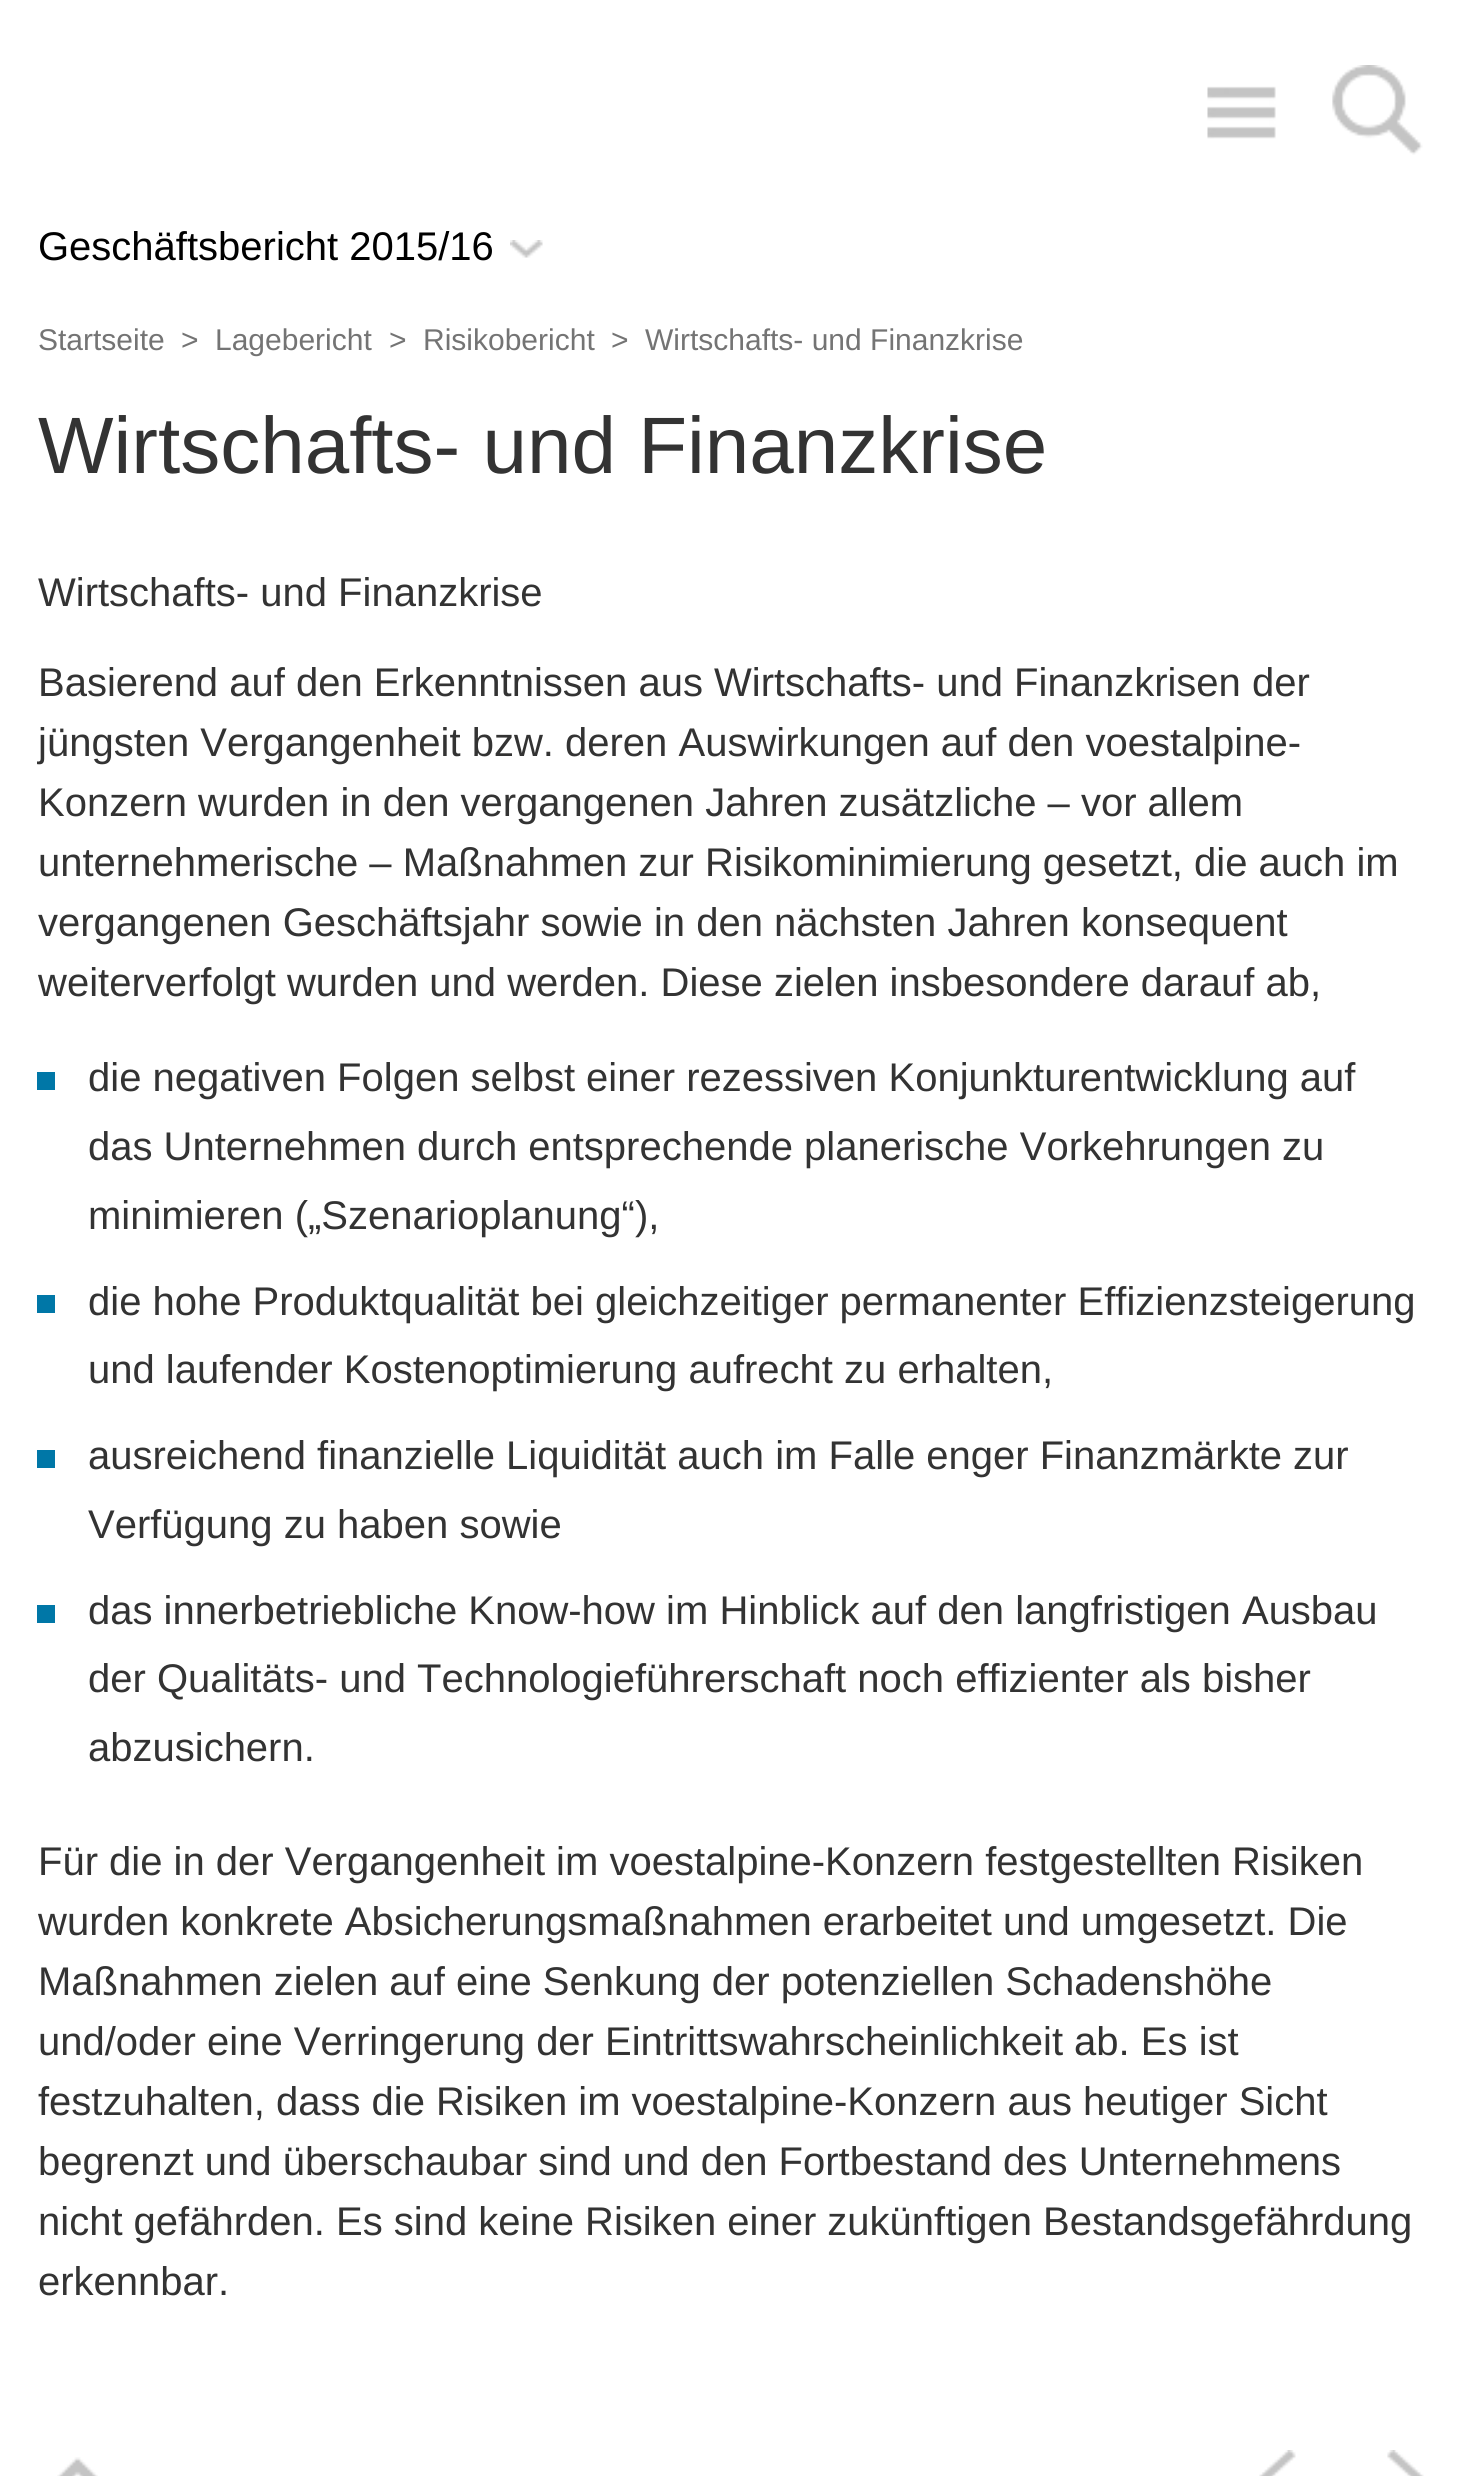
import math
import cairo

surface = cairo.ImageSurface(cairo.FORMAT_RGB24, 1463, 2476)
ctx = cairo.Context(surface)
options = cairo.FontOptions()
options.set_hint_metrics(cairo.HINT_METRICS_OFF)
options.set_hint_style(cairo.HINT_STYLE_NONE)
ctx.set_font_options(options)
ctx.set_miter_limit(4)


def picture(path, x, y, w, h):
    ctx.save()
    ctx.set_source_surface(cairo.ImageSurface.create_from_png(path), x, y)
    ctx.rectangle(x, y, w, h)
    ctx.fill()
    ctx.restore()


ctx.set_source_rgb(1, 1, 1)
ctx.paint()
picture("img1.png", 1207, 86, 69, 53)
picture("img2.png", 1332, 65, 91, 90)
picture("img3.png", 510, 240, 33, 18)
ctx.select_font_face("Liberation Sans")
ctx.set_font_size(40)
ctx.set_source_rgb(0, 0, 0)
ctx.move_to(38, 260)
ctx.show_text("Geschäftsbericht 2015/16")
ctx.set_font_size(30)
ctx.set_source_rgb(0.455, 0.455, 0.455)
ctx.move_to(38, 350)
ctx.show_text("Startseite")
ctx.move_to(181, 350)
ctx.show_text(">")
ctx.move_to(215, 350)
ctx.show_text("Lagebericht")
ctx.move_to(389, 350)
ctx.show_text(">")
ctx.move_to(423, 350)
ctx.show_text("Risikobericht")
ctx.move_to(611, 350)
ctx.show_text(">")
ctx.move_to(645, 350)
ctx.show_text("Wirtschafts- und Finanzkrise")
ctx.set_font_size(80)
ctx.set_source_rgb(0.2, 0.2, 0.2)
ctx.move_to(38, 473)
ctx.show_text("Wirtschafts- und Finanzkrise")
ctx.set_font_size(40)
ctx.move_to(38, 606)
ctx.show_text("Wirtschafts- und Finanzkrise")
ctx.move_to(38, 696)
ctx.show_text("Basierend auf den Erkenntnissen aus Wirtschafts- und Finanzkrisen der")
ctx.move_to(38, 756)
ctx.show_text("jüngsten Vergangenheit bzw. deren Auswirkungen auf den voestalpine-")
ctx.move_to(38, 816)
ctx.show_text("Konzern wurden in den vergangenen Jahren zusätzliche – vor allem")
ctx.move_to(38, 876)
ctx.show_text("unternehmerische – Maßnahmen zur Risikominimierung gesetzt, die auch im")
ctx.move_to(38, 936)
ctx.show_text("vergangenen Geschäftsjahr sowie in den nächsten Jahren konsequent")
ctx.move_to(38, 996)
ctx.show_text("weiterverfolgt wurden und werden. Diese zielen insbesondere darauf ab,")
ctx.set_source_rgb(0, 0.467, 0.655)
ctx.rectangle(37, 1072, 18, 18)
ctx.fill()
ctx.set_source_rgb(0.2, 0.2, 0.2)
ctx.move_to(88, 1091)
ctx.show_text("die negativen Folgen selbst einer rezessiven Konjunkturentwicklung auf")
ctx.move_to(88, 1160)
ctx.show_text("das Unternehmen durch entsprechende planerische Vorkehrungen zu")
ctx.move_to(88, 1229)
ctx.show_text("minimieren („Szenarioplanung“),")
ctx.set_source_rgb(0, 0.467, 0.655)
ctx.rectangle(37, 1295, 18, 18)
ctx.fill()
ctx.set_source_rgb(0.2, 0.2, 0.2)
ctx.move_to(88, 1315)
ctx.show_text("die hohe Produktqualität bei gleichzeitiger permanenter Effizienzsteigerung")
ctx.move_to(88, 1383)
ctx.show_text("und laufender Kostenoptimierung aufrecht zu erhalten,")
ctx.set_source_rgb(0, 0.467, 0.655)
ctx.rectangle(37, 1450, 18, 18)
ctx.fill()
ctx.set_source_rgb(0.2, 0.2, 0.2)
ctx.move_to(88, 1469)
ctx.show_text("ausreichend finanzielle Liquidität auch im Falle enger Finanzmärkte zur")
ctx.move_to(88, 1538)
ctx.show_text("Verfügung zu haben sowie")
ctx.set_source_rgb(0, 0.467, 0.655)
ctx.rectangle(37, 1605, 18, 18)
ctx.fill()
ctx.set_source_rgb(0.2, 0.2, 0.2)
ctx.move_to(88, 1624)
ctx.show_text("das innerbetriebliche Know-how im Hinblick auf den langfristigen Ausbau")
ctx.move_to(88, 1692)
ctx.show_text("der Qualitäts- und Technologieführerschaft noch effizienter als bisher")
ctx.move_to(88, 1761)
ctx.show_text("abzusichern.")
ctx.move_to(38, 1875)
ctx.show_text("Für die in der Vergangenheit im voestalpine-Konzern festgestellten Risiken")
ctx.move_to(38, 1935)
ctx.show_text("wurden konkrete Absicherungsmaßnahmen erarbeitet und umgesetzt. Die")
ctx.move_to(38, 1995)
ctx.show_text("Maßnahmen zielen auf eine Senkung der potenziellen Schadenshöhe")
ctx.move_to(38, 2055)
ctx.show_text("und/oder eine Verringerung der Eintrittswahrscheinlichkeit ab. Es ist")
ctx.move_to(38, 2115)
ctx.show_text("festzuhalten, dass die Risiken im voestalpine-Konzern aus heutiger Sicht")
ctx.move_to(38, 2175)
ctx.show_text("begrenzt und überschaubar sind und den Fortbestand des Unternehmens")
ctx.move_to(38, 2235)
ctx.show_text("nicht gefährden. Es sind keine Risiken einer zukünftigen Bestandsgefährdung")
ctx.move_to(38, 2295)
ctx.show_text("erkennbar.")
picture("img4.png", 57, 2457, 41, 19)
picture("img5.png", 1259, 2450, 37, 26)
picture("img6.png", 1387, 2450, 37, 26)
surface.write_to_png("page.png")
